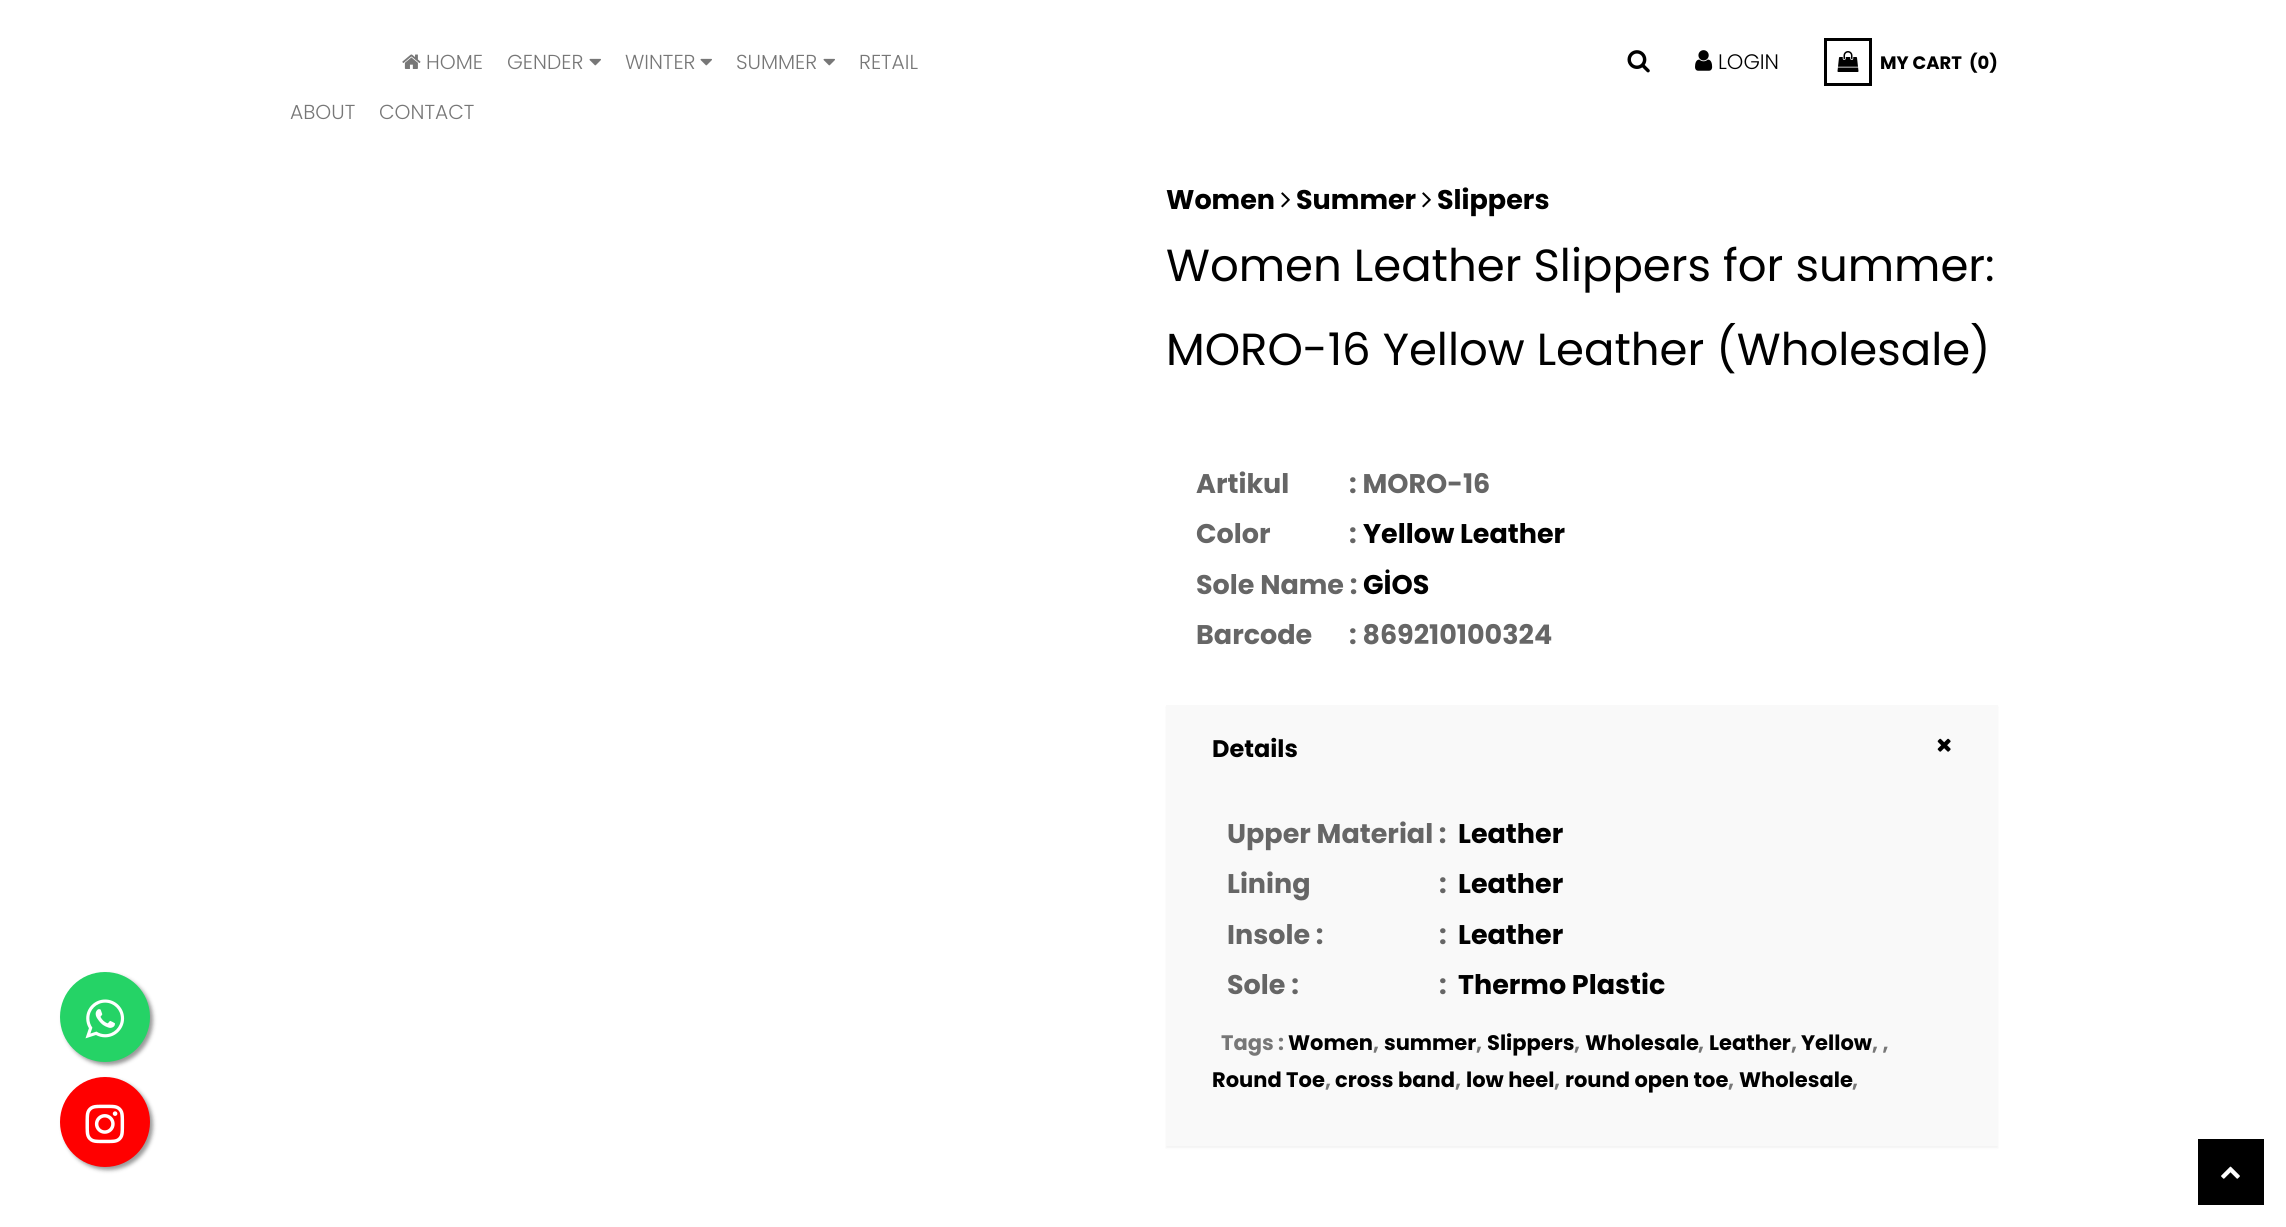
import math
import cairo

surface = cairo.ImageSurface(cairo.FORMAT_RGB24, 2286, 1227)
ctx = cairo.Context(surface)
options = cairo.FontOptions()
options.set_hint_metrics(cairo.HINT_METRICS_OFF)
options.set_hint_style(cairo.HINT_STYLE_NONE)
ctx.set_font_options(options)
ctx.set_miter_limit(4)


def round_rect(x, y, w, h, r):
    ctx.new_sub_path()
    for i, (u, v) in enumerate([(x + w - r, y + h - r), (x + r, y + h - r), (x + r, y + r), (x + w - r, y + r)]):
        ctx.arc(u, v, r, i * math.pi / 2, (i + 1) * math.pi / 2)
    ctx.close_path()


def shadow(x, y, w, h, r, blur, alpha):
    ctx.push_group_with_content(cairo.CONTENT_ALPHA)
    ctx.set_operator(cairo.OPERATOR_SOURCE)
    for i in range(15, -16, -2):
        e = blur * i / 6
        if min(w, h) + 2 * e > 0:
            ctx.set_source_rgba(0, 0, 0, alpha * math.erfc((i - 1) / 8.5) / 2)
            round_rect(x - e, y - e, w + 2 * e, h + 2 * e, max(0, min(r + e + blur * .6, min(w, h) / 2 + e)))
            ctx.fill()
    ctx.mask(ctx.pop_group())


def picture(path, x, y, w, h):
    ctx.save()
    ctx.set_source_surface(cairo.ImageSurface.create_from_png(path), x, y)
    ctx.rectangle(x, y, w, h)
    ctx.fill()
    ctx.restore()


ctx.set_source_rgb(1, 1, 1)
ctx.paint()
picture("img1.png", 402, 54, 19, 15)
ctx.select_font_face("Poppins Light")
ctx.set_font_size(20.25)
ctx.set_source_rgb(0.467, 0.467, 0.467)
ctx.move_to(426, 69)
ctx.show_text("HOME")
ctx.move_to(507, 69)
ctx.show_text("GENDER")
picture("img2.png", 589, 58, 12, 8)
ctx.move_to(625, 69)
ctx.show_text("WINTER")
picture("img2.png", 700, 58, 12, 8)
ctx.move_to(736, 69)
ctx.show_text("SUMMER")
picture("img2.png", 823, 58, 12, 8)
ctx.move_to(859, 69)
ctx.show_text("RETAIL")
ctx.move_to(290, 119)
ctx.show_text("ABOUT")
ctx.move_to(379, 119)
ctx.show_text("CONTACT")
picture("img3.png", 1627, 50, 23, 23)
picture("img4.png", 1695, 50, 18, 21)
ctx.set_font_size(21)
ctx.set_source_rgb(0, 0, 0)
ctx.move_to(1718, 69)
ctx.show_text("LOGIN")
ctx.rectangle(1825.5, 39.5, 45, 45)
ctx.set_line_width(3)
ctx.stroke()
picture("img5.png", 1837, 51, 22, 21)
ctx.select_font_face("Poppins", cairo.FONT_SLANT_NORMAL, cairo.FONT_WEIGHT_BOLD)
ctx.set_font_size(18)
ctx.move_to(1880, 69)
ctx.show_text("MY CART")
ctx.move_to(1969, 69)
ctx.show_text("(0)")
ctx.set_source_rgb(0.6, 0.6, 0.6)
shadow(63, 975, 90, 90, 45, 2, 1)
ctx.set_source_rgb(0.145, 0.827, 0.4)
ctx.arc(105, 1017, 45, 0, 2 * math.pi)
ctx.fill()
picture("img6.png", 85, 999, 40, 40)
ctx.set_font_size(27)
ctx.set_source_rgb(0, 0, 0)
ctx.move_to(1166, 209)
ctx.show_text("Women")
picture("img7.png", 1281, 192, 9, 16)
ctx.move_to(1296, 209)
ctx.show_text("Summer")
picture("img7.png", 1422, 192, 9, 16)
ctx.move_to(1437, 209)
ctx.show_text("Slippers")
ctx.select_font_face("Poppins")
ctx.set_font_size(45)
ctx.move_to(1166, 281)
ctx.show_text("Women Leather Slippers for summer:")
ctx.move_to(1166, 365)
ctx.show_text("MORO-16 Yellow Leather (Wholesale)")
ctx.select_font_face("Poppins", cairo.FONT_SLANT_NORMAL, cairo.FONT_WEIGHT_BOLD)
ctx.set_font_size(27)
ctx.set_source_rgb(0.4, 0.4, 0.4)
ctx.move_to(1196, 493)
ctx.show_text("Artikul")
ctx.move_to(1349, 493)
ctx.show_text(": MORO-16")
ctx.move_to(1196, 543)
ctx.show_text("Color")
ctx.move_to(1349, 543)
ctx.show_text(":")
ctx.set_source_rgb(0, 0, 0)
ctx.move_to(1363, 543)
ctx.show_text("Yellow Leather")
ctx.set_source_rgb(0.4, 0.4, 0.4)
ctx.move_to(1196, 594)
ctx.show_text("Sole Name :")
ctx.set_source_rgb(0, 0, 0)
ctx.move_to(1363, 594)
ctx.show_text("GİOS")
ctx.set_source_rgb(0.4, 0.4, 0.4)
ctx.move_to(1196, 644)
ctx.show_text("Barcode")
ctx.move_to(1349, 644)
ctx.show_text(": 869210100324")
ctx.set_source_rgb(0, 0, 0)
shadow(1166, 707, 832, 441, 0, 1, 0.05)
ctx.set_source_rgb(0.973, 0.973, 0.973)
ctx.rectangle(1166, 705, 832, 441)
ctx.fill()
ctx.set_font_size(24)
ctx.set_source_rgb(0, 0, 0)
ctx.move_to(1212, 757)
ctx.show_text("Details")
picture("img8.png", 1937, 738, 14, 14)
ctx.set_font_size(27)
ctx.set_source_rgb(0.4, 0.4, 0.4)
ctx.move_to(1227, 843)
ctx.show_text("Upper Material :")
ctx.set_source_rgb(0, 0, 0)
ctx.move_to(1458, 843)
ctx.show_text("Leather")
ctx.set_source_rgb(0.4, 0.4, 0.4)
ctx.move_to(1227, 893)
ctx.show_text("Lining")
ctx.move_to(1439, 893)
ctx.show_text(":")
ctx.set_source_rgb(0, 0, 0)
ctx.move_to(1458, 893)
ctx.show_text("Leather")
ctx.set_source_rgb(0.4, 0.4, 0.4)
ctx.move_to(1227, 944)
ctx.show_text("Insole :")
ctx.move_to(1439, 944)
ctx.show_text(":")
ctx.set_source_rgb(0, 0, 0)
ctx.move_to(1458, 944)
ctx.show_text("Leather")
ctx.set_source_rgb(0.4, 0.4, 0.4)
ctx.move_to(1227, 994)
ctx.show_text("Sole :")
ctx.move_to(1439, 994)
ctx.show_text(":")
ctx.set_source_rgb(0, 0, 0)
ctx.move_to(1458, 994)
ctx.show_text("Thermo Plastic")
ctx.set_font_size(21)
ctx.set_source_rgb(0.467, 0.467, 0.467)
ctx.move_to(1221, 1050)
ctx.show_text("Tags :")
ctx.set_source_rgb(0, 0, 0)
ctx.move_to(1288, 1050)
ctx.show_text("Women")
ctx.set_source_rgb(0.467, 0.467, 0.467)
ctx.move_to(1373, 1050)
ctx.show_text(",")
ctx.set_source_rgb(0, 0, 0)
ctx.move_to(1384, 1050)
ctx.show_text("summer")
ctx.set_source_rgb(0.467, 0.467, 0.467)
ctx.move_to(1476, 1050)
ctx.show_text(",")
ctx.set_source_rgb(0, 0, 0)
ctx.move_to(1487, 1050)
ctx.show_text("Slippers")
ctx.set_source_rgb(0.467, 0.467, 0.467)
ctx.move_to(1574, 1050)
ctx.show_text(",")
ctx.set_source_rgb(0, 0, 0)
ctx.move_to(1585, 1050)
ctx.show_text("Wholesale")
ctx.set_source_rgb(0.467, 0.467, 0.467)
ctx.move_to(1698, 1050)
ctx.show_text(",")
ctx.set_source_rgb(0, 0, 0)
ctx.move_to(1709, 1050)
ctx.show_text("Leather")
ctx.set_source_rgb(0.467, 0.467, 0.467)
ctx.move_to(1791, 1050)
ctx.show_text(",")
ctx.set_source_rgb(0, 0, 0)
ctx.move_to(1801, 1050)
ctx.show_text("Yellow")
ctx.set_source_rgb(0.467, 0.467, 0.467)
ctx.move_to(1872, 1050)
ctx.show_text(", ,")
ctx.set_source_rgb(0, 0, 0)
ctx.move_to(1212, 1087)
ctx.show_text("Round Toe")
ctx.set_source_rgb(0.467, 0.467, 0.467)
ctx.move_to(1325, 1087)
ctx.show_text(",")
ctx.set_source_rgb(0, 0, 0)
ctx.move_to(1335, 1087)
ctx.show_text("cross band")
ctx.set_source_rgb(0.467, 0.467, 0.467)
ctx.move_to(1455, 1087)
ctx.show_text(",")
ctx.set_source_rgb(0, 0, 0)
ctx.move_to(1466, 1087)
ctx.show_text("low heel")
ctx.set_source_rgb(0.467, 0.467, 0.467)
ctx.move_to(1554, 1087)
ctx.show_text(",")
ctx.set_source_rgb(0, 0, 0)
ctx.move_to(1565, 1087)
ctx.show_text("round open toe")
ctx.set_source_rgb(0.467, 0.467, 0.467)
ctx.move_to(1728, 1087)
ctx.show_text(",")
ctx.set_source_rgb(0, 0, 0)
ctx.move_to(1739, 1087)
ctx.show_text("Wholesale")
ctx.set_source_rgb(0.467, 0.467, 0.467)
ctx.move_to(1852, 1087)
ctx.show_text(",")
ctx.set_source_rgb(0.6, 0.6, 0.6)
shadow(63, 1080, 90, 90, 45, 2, 1)
ctx.set_source_rgb(1, 0, 0)
ctx.arc(105, 1122, 45, 0, 2 * math.pi)
ctx.fill()
picture("img9.png", 85, 1104, 40, 40)
ctx.set_source_rgb(0, 0, 0)
ctx.rectangle(2198, 1139, 66, 66)
ctx.fill()
picture("img10.png", 2221, 1166, 19, 13)
surface.write_to_png("page.png")
